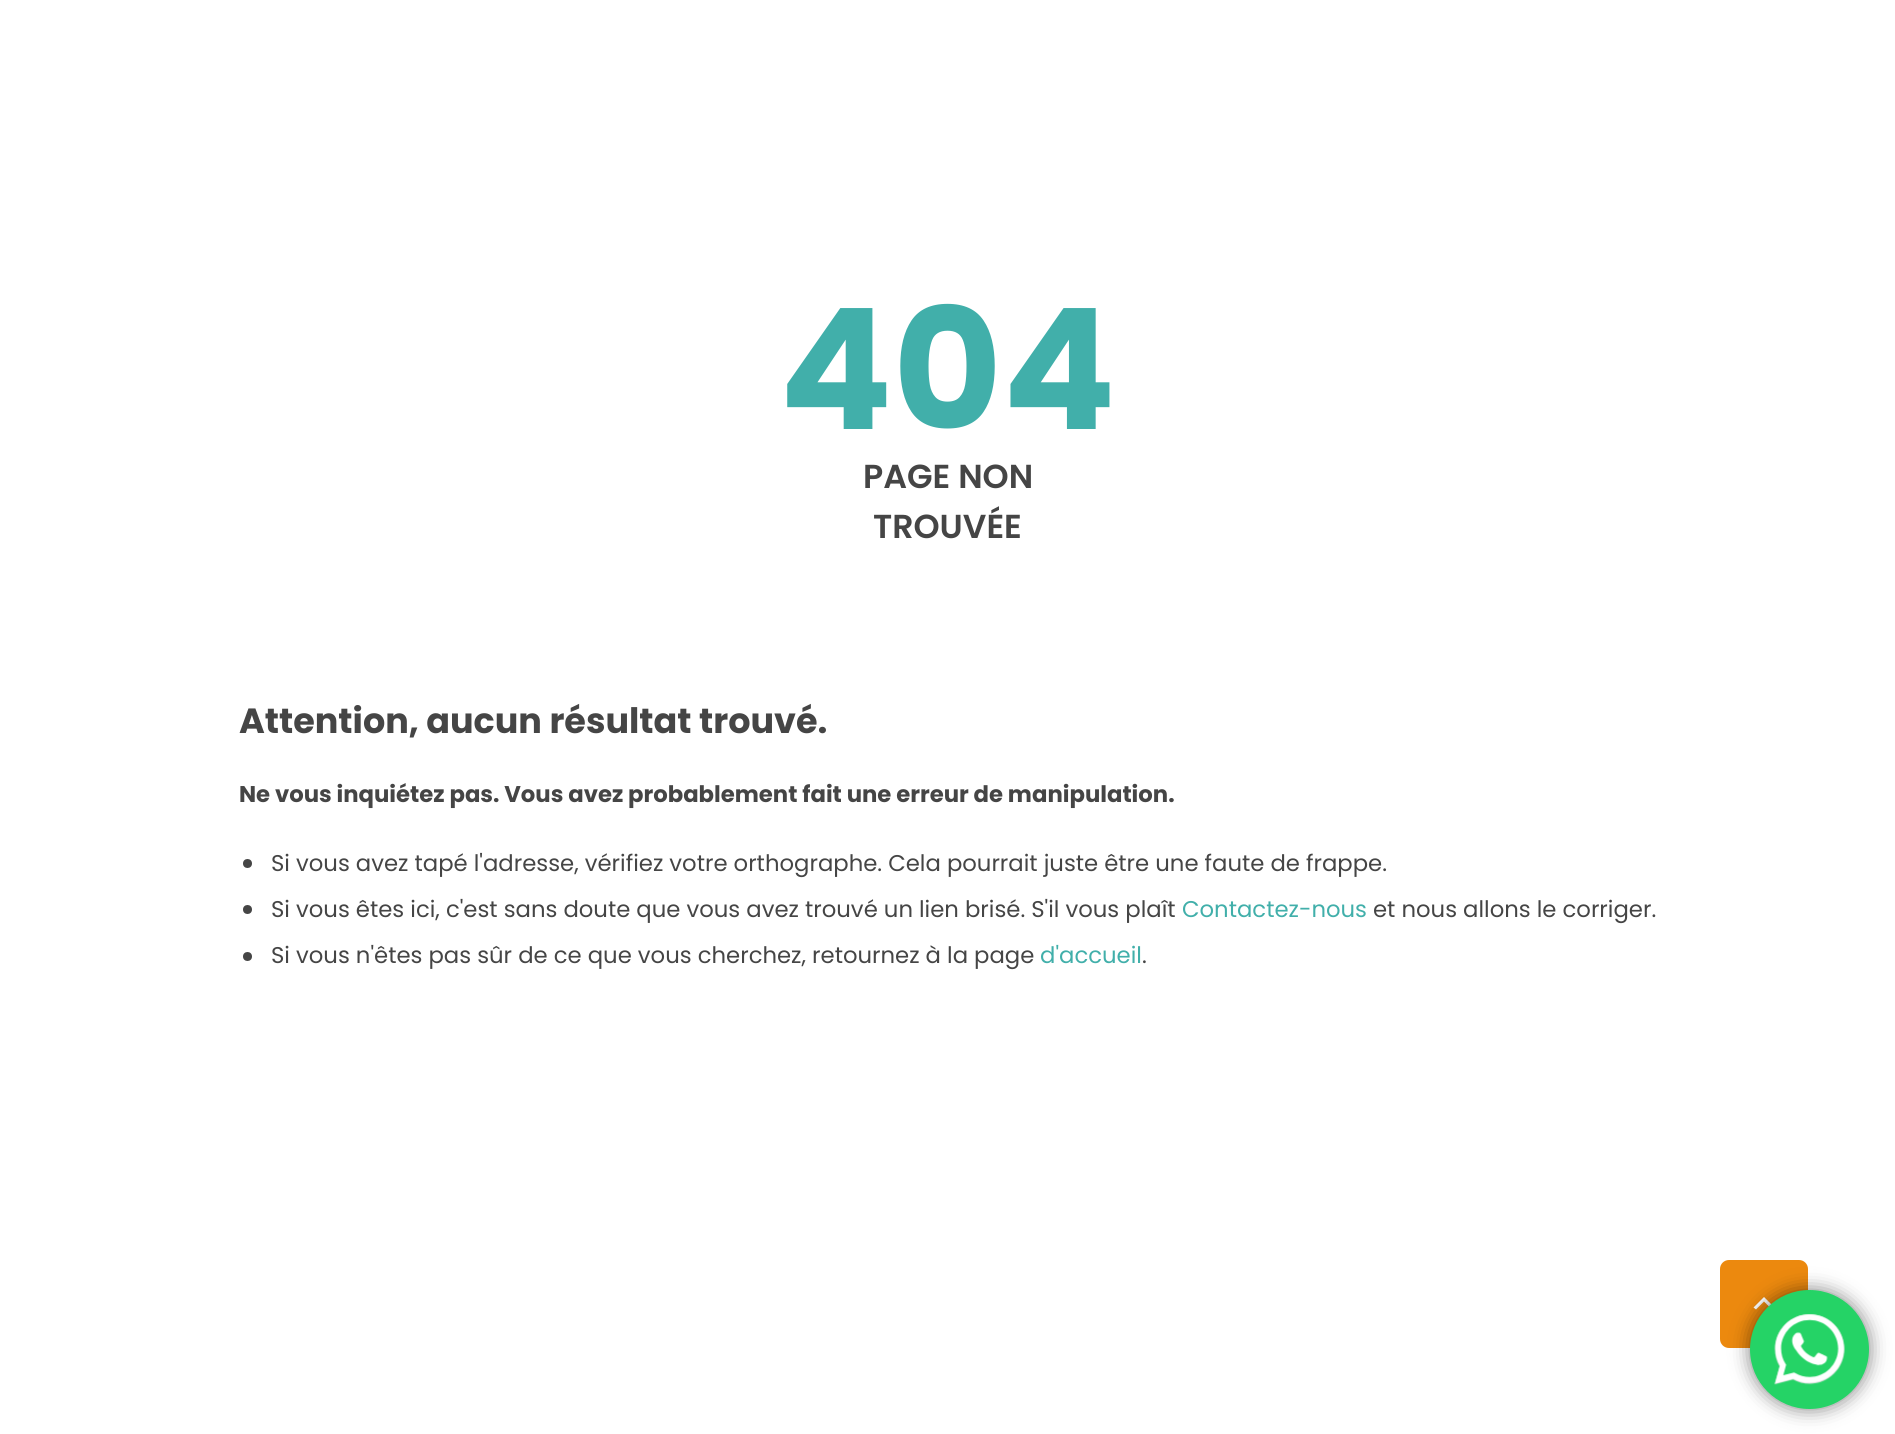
import math
import cairo

surface = cairo.ImageSurface(cairo.FORMAT_RGB24, 1895, 1434)
ctx = cairo.Context(surface)
options = cairo.FontOptions()
options.set_hint_metrics(cairo.HINT_METRICS_OFF)
options.set_hint_style(cairo.HINT_STYLE_NONE)
ctx.set_font_options(options)
ctx.set_miter_limit(4)


def round_rect(x, y, w, h, r):
    ctx.new_sub_path()
    for i, (u, v) in enumerate([(x + w - r, y + h - r), (x + r, y + h - r), (x + r, y + r), (x + w - r, y + r)]):
        ctx.arc(u, v, r, i * math.pi / 2, (i + 1) * math.pi / 2)
    ctx.close_path()


def shadow(x, y, w, h, r, blur, alpha):
    ctx.push_group_with_content(cairo.CONTENT_ALPHA)
    ctx.set_operator(cairo.OPERATOR_SOURCE)
    for i in range(15, -16, -2):
        e = blur * i / 6
        if min(w, h) + 2 * e > 0:
            ctx.set_source_rgba(0, 0, 0, alpha * math.erfc((i - 1) / 8.5) / 2)
            round_rect(x - e, y - e, w + 2 * e, h + 2 * e, max(0, min(r + e + blur * .6, min(w, h) / 2 + e)))
            ctx.fill()
    ctx.mask(ctx.pop_group())


def picture(path, x, y, w, h):
    ctx.save()
    ctx.set_source_surface(cairo.ImageSurface.create_from_png(path), x, y)
    ctx.rectangle(x, y, w, h)
    ctx.fill()
    ctx.restore()


ctx.set_source_rgb(1, 1, 1)
ctx.paint()
ctx.select_font_face("Poppins", cairo.FONT_SLANT_NORMAL, cairo.FONT_WEIGHT_BOLD)
ctx.set_font_size(168)
ctx.set_source_rgb(0.255, 0.686, 0.667)
ctx.move_to(779, 429)
ctx.show_text("404")
ctx.select_font_face("Poppins SemiBold")
ctx.set_font_size(33.25)
ctx.set_source_rgb(0.271, 0.271, 0.271)
ctx.move_to(863, 488)
ctx.show_text("PAGE NON")
ctx.move_to(873, 538)
ctx.show_text("TROUVÉE")
ctx.select_font_face("Poppins", cairo.FONT_SLANT_NORMAL, cairo.FONT_WEIGHT_BOLD)
ctx.set_font_size(35)
ctx.move_to(239, 733)
ctx.show_text("Attention, aucun résultat trouvé.")
ctx.set_font_size(22.75)
ctx.move_to(239, 802)
ctx.show_text("Ne vous inquiétez pas. Vous avez probablement fait une erreur de manipulation.")
ctx.new_path()
ctx.arc(247.5, 863.5, 4.5, 0, 2 * math.pi)
ctx.fill()
ctx.select_font_face("Poppins")
ctx.move_to(271, 871)
ctx.show_text("Si vous avez tapé l'adresse, vérifiez votre orthographe. Cela pourrait juste être une faute de frappe.")
ctx.new_path()
ctx.arc(247.5, 909.5, 4.5, 0, 2 * math.pi)
ctx.fill()
ctx.move_to(271, 917)
ctx.show_text("Si vous êtes ici, c'est sans doute que vous avez trouvé un lien brisé. S'il vous plaît")
ctx.set_source_rgb(0.255, 0.686, 0.667)
ctx.move_to(1182, 917)
ctx.show_text("Contactez-nous")
ctx.set_source_rgb(0.271, 0.271, 0.271)
ctx.move_to(1373, 917)
ctx.show_text("et nous allons le corriger.")
ctx.new_path()
ctx.arc(247.5, 956.5, 4.5, 0, 2 * math.pi)
ctx.fill()
ctx.move_to(271, 963)
ctx.show_text("Si vous n'êtes pas sûr de ce que vous cherchez, retournez à la page")
ctx.set_source_rgb(0.255, 0.686, 0.667)
ctx.move_to(1040, 963)
ctx.show_text("d'accueil")
ctx.set_source_rgb(0.271, 0.271, 0.271)
ctx.move_to(1142, 963)
ctx.show_text(".")
ctx.set_source_rgb(0.922, 0.537, 0.055)
round_rect(1720, 1260, 88, 88, 9)
ctx.fill()
ctx.set_source_rgb(1, 1, 1)
ctx.new_path()
ctx.move_to(1756, 1309.5)
ctx.line_to(1753.5, 1307.5)
ctx.line_to(1764, 1297)
ctx.line_to(1774.5, 1307.5)
ctx.line_to(1772, 1309.5)
ctx.line_to(1764, 1301.5)
ctx.close_path()
ctx.fill()
ctx.set_source_rgb(0, 0, 0)
shadow(1750, 1290, 119, 119, 59.5, 9.5, 0.5)
ctx.set_source_rgb(0.145, 0.827, 0.4)
ctx.arc(1809.5, 1349.5, 59.5, 0, 2 * math.pi)
ctx.fill()
picture("img1.png", 1774, 1314, 71, 71)
surface.write_to_png("page.png")
